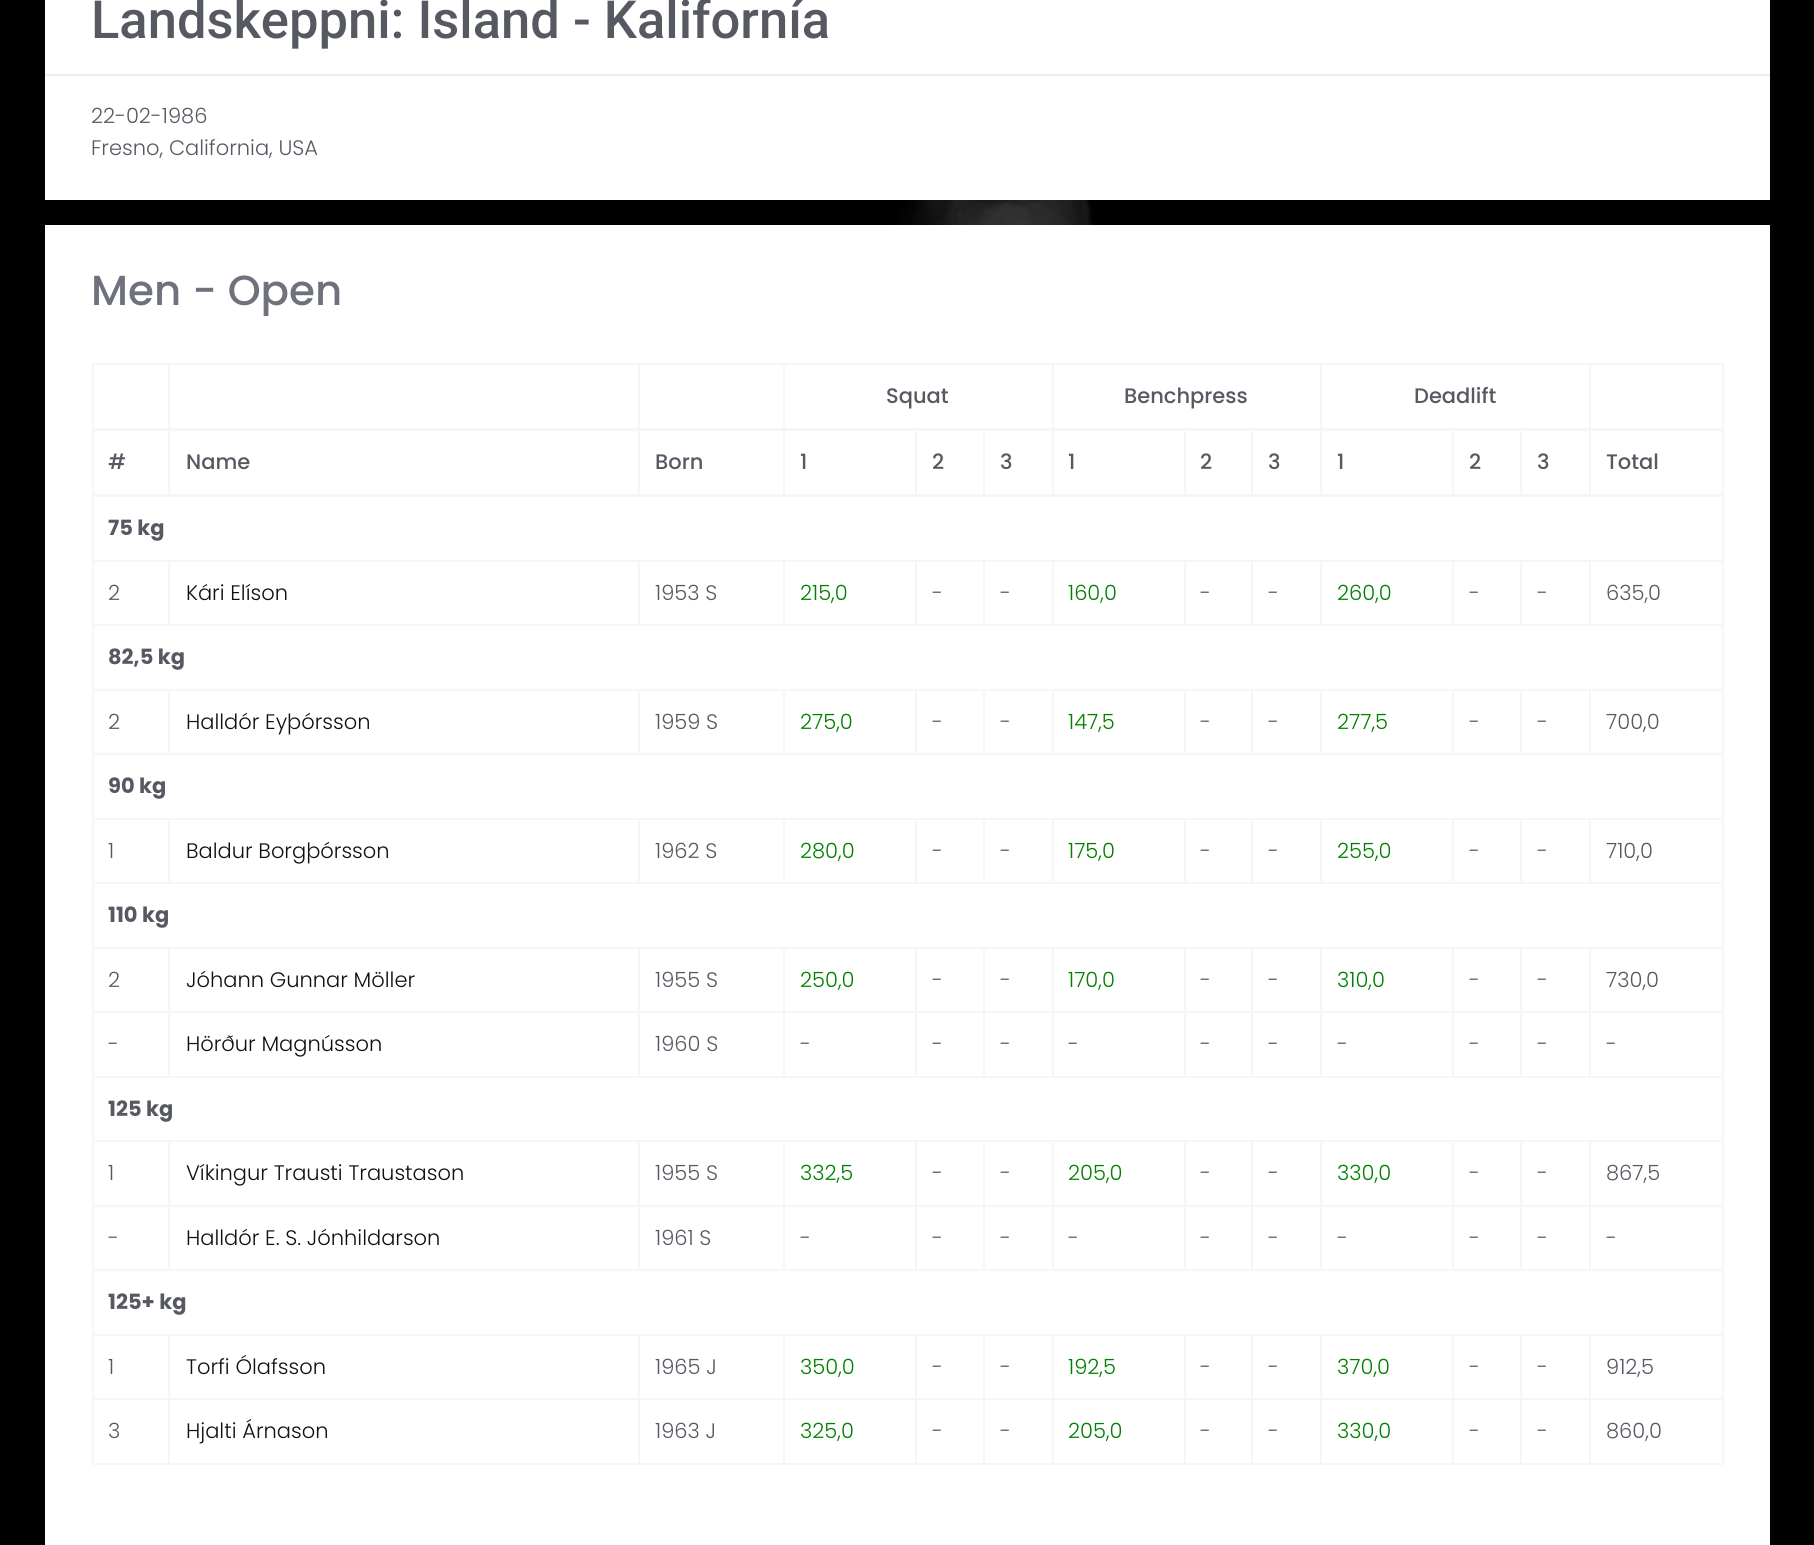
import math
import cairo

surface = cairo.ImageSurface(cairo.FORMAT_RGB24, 1814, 1545)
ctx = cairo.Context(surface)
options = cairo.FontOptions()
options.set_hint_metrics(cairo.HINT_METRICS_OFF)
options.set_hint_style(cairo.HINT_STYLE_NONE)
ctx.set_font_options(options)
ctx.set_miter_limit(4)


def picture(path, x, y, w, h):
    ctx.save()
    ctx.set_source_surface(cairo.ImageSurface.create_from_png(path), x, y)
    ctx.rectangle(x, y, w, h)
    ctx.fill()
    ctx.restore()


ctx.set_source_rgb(1, 1, 1)
ctx.paint()
picture("img1.png", 0, 0, 1814, 1545)
ctx.set_source_rgb(1, 1, 1)
ctx.rectangle(45, 0, 1725, 200)
ctx.fill()
ctx.set_source_rgb(0.922, 0.929, 0.949)
ctx.rectangle(45, 74, 1725, 2)
ctx.fill()
ctx.select_font_face("Roboto Medium")
ctx.set_font_size(52.5)
ctx.set_source_rgb(0.341, 0.349, 0.384)
ctx.move_to(91, 38)
ctx.show_text("Landskeppni: Ísland - Kalifornía")
ctx.select_font_face("Poppins Light")
ctx.set_font_size(21)
ctx.move_to(91, 123)
ctx.show_text("22-02-1986")
ctx.move_to(91, 155)
ctx.show_text("Fresno, California, USA")
ctx.set_source_rgb(1, 1, 1)
ctx.rectangle(45, 225, 1725, 1320)
ctx.fill()
ctx.select_font_face("Poppins Medium")
ctx.set_font_size(42)
ctx.set_source_rgb(0.435, 0.447, 0.49)
ctx.move_to(91, 305)
ctx.show_text("Men - Open")
ctx.set_source_rgb(0.957, 0.961, 0.973)
ctx.rectangle(1589, 363, 135, 2)
ctx.fill()
ctx.rectangle(1589, 560, 135, 2)
ctx.fill()
ctx.rectangle(92, 624, 1632, 2)
ctx.fill()
ctx.rectangle(1589, 689, 135, 2)
ctx.fill()
ctx.rectangle(92, 753, 1632, 2)
ctx.fill()
ctx.rectangle(1589, 818, 135, 2)
ctx.fill()
ctx.rectangle(92, 882, 1632, 2)
ctx.fill()
ctx.rectangle(1589, 947, 135, 2)
ctx.fill()
ctx.rectangle(1589, 1011, 135, 2)
ctx.fill()
ctx.rectangle(92, 1076, 1632, 2)
ctx.fill()
ctx.rectangle(1589, 1140, 135, 2)
ctx.fill()
ctx.rectangle(1589, 1205, 135, 2)
ctx.fill()
ctx.rectangle(92, 1269, 1632, 2)
ctx.fill()
ctx.rectangle(1589, 1334, 135, 2)
ctx.fill()
ctx.rectangle(1589, 1398, 135, 2)
ctx.fill()
ctx.rectangle(1722, 1398, 2, 66)
ctx.fill()
ctx.rectangle(1722, 1334, 2, 66)
ctx.fill()
ctx.rectangle(1722, 1269, 2, 66)
ctx.fill()
ctx.rectangle(1722, 1205, 2, 66)
ctx.fill()
ctx.rectangle(1722, 1140, 2, 66)
ctx.fill()
ctx.rectangle(1722, 1076, 2, 66)
ctx.fill()
ctx.rectangle(1722, 1011, 2, 66)
ctx.fill()
ctx.rectangle(1722, 947, 2, 66)
ctx.fill()
ctx.rectangle(1722, 882, 2, 66)
ctx.fill()
ctx.rectangle(1722, 818, 2, 66)
ctx.fill()
ctx.rectangle(1722, 753, 2, 66)
ctx.fill()
ctx.rectangle(1722, 689, 2, 66)
ctx.fill()
ctx.rectangle(1722, 624, 2, 66)
ctx.fill()
ctx.rectangle(1722, 429, 2, 197)
ctx.fill()
ctx.rectangle(1722, 363, 2, 68)
ctx.fill()
ctx.rectangle(1589, 429, 2, 68)
ctx.fill()
ctx.rectangle(1589, 363, 2, 68)
ctx.fill()
ctx.rectangle(1320, 363, 270, 2)
ctx.fill()
ctx.rectangle(1320, 429, 2, 68)
ctx.fill()
ctx.rectangle(1320, 363, 2, 68)
ctx.fill()
ctx.rectangle(1052, 363, 270, 2)
ctx.fill()
ctx.rectangle(1052, 429, 2, 68)
ctx.fill()
ctx.rectangle(1052, 363, 2, 68)
ctx.fill()
ctx.rectangle(783, 363, 270, 2)
ctx.fill()
ctx.rectangle(783, 429, 2, 68)
ctx.fill()
ctx.rectangle(783, 363, 2, 68)
ctx.fill()
ctx.rectangle(638, 363, 147, 2)
ctx.fill()
ctx.rectangle(638, 429, 2, 68)
ctx.fill()
ctx.rectangle(638, 363, 2, 68)
ctx.fill()
ctx.rectangle(168, 363, 471, 2)
ctx.fill()
ctx.rectangle(168, 429, 2, 68)
ctx.fill()
ctx.rectangle(168, 363, 2, 68)
ctx.fill()
ctx.rectangle(92, 363, 78, 2)
ctx.fill()
ctx.rectangle(1589, 560, 2, 66)
ctx.fill()
ctx.rectangle(1520, 560, 70, 2)
ctx.fill()
ctx.rectangle(1520, 560, 2, 66)
ctx.fill()
ctx.rectangle(1452, 560, 69, 2)
ctx.fill()
ctx.rectangle(1452, 560, 2, 66)
ctx.fill()
ctx.rectangle(1320, 560, 134, 2)
ctx.fill()
ctx.rectangle(1320, 560, 2, 66)
ctx.fill()
ctx.rectangle(1251, 560, 71, 2)
ctx.fill()
ctx.rectangle(1251, 560, 2, 66)
ctx.fill()
ctx.rectangle(1184, 560, 69, 2)
ctx.fill()
ctx.rectangle(1184, 560, 2, 66)
ctx.fill()
ctx.rectangle(1052, 560, 133, 2)
ctx.fill()
ctx.rectangle(1052, 560, 2, 66)
ctx.fill()
ctx.rectangle(983, 560, 70, 2)
ctx.fill()
ctx.rectangle(983, 560, 2, 66)
ctx.fill()
ctx.rectangle(915, 560, 69, 2)
ctx.fill()
ctx.rectangle(915, 560, 2, 66)
ctx.fill()
ctx.rectangle(783, 560, 134, 2)
ctx.fill()
ctx.rectangle(783, 560, 2, 66)
ctx.fill()
ctx.rectangle(638, 560, 147, 2)
ctx.fill()
ctx.rectangle(638, 560, 2, 66)
ctx.fill()
ctx.rectangle(168, 560, 471, 2)
ctx.fill()
ctx.rectangle(168, 560, 2, 66)
ctx.fill()
ctx.rectangle(92, 560, 78, 2)
ctx.fill()
ctx.rectangle(1589, 689, 2, 66)
ctx.fill()
ctx.rectangle(1520, 689, 70, 2)
ctx.fill()
ctx.rectangle(1520, 689, 2, 66)
ctx.fill()
ctx.rectangle(1452, 689, 69, 2)
ctx.fill()
ctx.rectangle(1452, 689, 2, 66)
ctx.fill()
ctx.rectangle(1320, 689, 134, 2)
ctx.fill()
ctx.rectangle(1320, 689, 2, 66)
ctx.fill()
ctx.rectangle(1251, 689, 71, 2)
ctx.fill()
ctx.rectangle(1251, 689, 2, 66)
ctx.fill()
ctx.rectangle(1184, 689, 69, 2)
ctx.fill()
ctx.rectangle(1184, 689, 2, 66)
ctx.fill()
ctx.rectangle(1052, 689, 133, 2)
ctx.fill()
ctx.rectangle(1052, 689, 2, 66)
ctx.fill()
ctx.rectangle(983, 689, 70, 2)
ctx.fill()
ctx.rectangle(983, 689, 2, 66)
ctx.fill()
ctx.rectangle(915, 689, 69, 2)
ctx.fill()
ctx.rectangle(915, 689, 2, 66)
ctx.fill()
ctx.rectangle(783, 689, 134, 2)
ctx.fill()
ctx.rectangle(783, 689, 2, 66)
ctx.fill()
ctx.rectangle(638, 689, 147, 2)
ctx.fill()
ctx.rectangle(638, 689, 2, 66)
ctx.fill()
ctx.rectangle(168, 689, 471, 2)
ctx.fill()
ctx.rectangle(168, 689, 2, 66)
ctx.fill()
ctx.rectangle(92, 689, 78, 2)
ctx.fill()
ctx.rectangle(1589, 818, 2, 66)
ctx.fill()
ctx.rectangle(1520, 818, 70, 2)
ctx.fill()
ctx.rectangle(1520, 818, 2, 66)
ctx.fill()
ctx.rectangle(1452, 818, 69, 2)
ctx.fill()
ctx.rectangle(1452, 818, 2, 66)
ctx.fill()
ctx.rectangle(1320, 818, 134, 2)
ctx.fill()
ctx.rectangle(1320, 818, 2, 66)
ctx.fill()
ctx.rectangle(1251, 818, 71, 2)
ctx.fill()
ctx.rectangle(1251, 818, 2, 66)
ctx.fill()
ctx.rectangle(1184, 818, 69, 2)
ctx.fill()
ctx.rectangle(1184, 818, 2, 66)
ctx.fill()
ctx.rectangle(1052, 818, 133, 2)
ctx.fill()
ctx.rectangle(1052, 818, 2, 66)
ctx.fill()
ctx.rectangle(983, 818, 70, 2)
ctx.fill()
ctx.rectangle(983, 818, 2, 66)
ctx.fill()
ctx.rectangle(915, 818, 69, 2)
ctx.fill()
ctx.rectangle(915, 818, 2, 66)
ctx.fill()
ctx.rectangle(783, 818, 134, 2)
ctx.fill()
ctx.rectangle(783, 818, 2, 66)
ctx.fill()
ctx.rectangle(638, 818, 147, 2)
ctx.fill()
ctx.rectangle(638, 818, 2, 66)
ctx.fill()
ctx.rectangle(168, 818, 471, 2)
ctx.fill()
ctx.rectangle(168, 818, 2, 66)
ctx.fill()
ctx.rectangle(92, 818, 78, 2)
ctx.fill()
ctx.rectangle(1589, 1011, 2, 66)
ctx.fill()
ctx.rectangle(1520, 1011, 70, 2)
ctx.fill()
ctx.rectangle(1589, 947, 2, 66)
ctx.fill()
ctx.rectangle(1520, 947, 70, 2)
ctx.fill()
ctx.rectangle(1520, 1011, 2, 66)
ctx.fill()
ctx.rectangle(1452, 1011, 69, 2)
ctx.fill()
ctx.rectangle(1520, 947, 2, 66)
ctx.fill()
ctx.rectangle(1452, 947, 69, 2)
ctx.fill()
ctx.rectangle(1452, 1011, 2, 66)
ctx.fill()
ctx.rectangle(1320, 1011, 134, 2)
ctx.fill()
ctx.rectangle(1452, 947, 2, 66)
ctx.fill()
ctx.rectangle(1320, 947, 134, 2)
ctx.fill()
ctx.rectangle(1320, 1011, 2, 66)
ctx.fill()
ctx.rectangle(1251, 1011, 71, 2)
ctx.fill()
ctx.rectangle(1320, 947, 2, 66)
ctx.fill()
ctx.rectangle(1251, 947, 71, 2)
ctx.fill()
ctx.rectangle(1251, 1011, 2, 66)
ctx.fill()
ctx.rectangle(1184, 1011, 69, 2)
ctx.fill()
ctx.rectangle(1251, 947, 2, 66)
ctx.fill()
ctx.rectangle(1184, 947, 69, 2)
ctx.fill()
ctx.rectangle(1184, 1011, 2, 66)
ctx.fill()
ctx.rectangle(1052, 1011, 133, 2)
ctx.fill()
ctx.rectangle(1184, 947, 2, 66)
ctx.fill()
ctx.rectangle(1052, 947, 133, 2)
ctx.fill()
ctx.rectangle(1052, 1011, 2, 66)
ctx.fill()
ctx.rectangle(983, 1011, 70, 2)
ctx.fill()
ctx.rectangle(1052, 947, 2, 66)
ctx.fill()
ctx.rectangle(983, 947, 70, 2)
ctx.fill()
ctx.rectangle(983, 1011, 2, 66)
ctx.fill()
ctx.rectangle(915, 1011, 69, 2)
ctx.fill()
ctx.rectangle(983, 947, 2, 66)
ctx.fill()
ctx.rectangle(915, 947, 69, 2)
ctx.fill()
ctx.rectangle(915, 1011, 2, 66)
ctx.fill()
ctx.rectangle(783, 1011, 134, 2)
ctx.fill()
ctx.rectangle(915, 947, 2, 66)
ctx.fill()
ctx.rectangle(783, 947, 134, 2)
ctx.fill()
ctx.rectangle(783, 1011, 2, 66)
ctx.fill()
ctx.rectangle(638, 1011, 147, 2)
ctx.fill()
ctx.rectangle(783, 947, 2, 66)
ctx.fill()
ctx.rectangle(638, 947, 147, 2)
ctx.fill()
ctx.rectangle(638, 1011, 2, 66)
ctx.fill()
ctx.rectangle(168, 1011, 471, 2)
ctx.fill()
ctx.rectangle(638, 947, 2, 66)
ctx.fill()
ctx.rectangle(168, 947, 471, 2)
ctx.fill()
ctx.rectangle(168, 1011, 2, 66)
ctx.fill()
ctx.rectangle(92, 1011, 78, 2)
ctx.fill()
ctx.rectangle(168, 947, 2, 66)
ctx.fill()
ctx.rectangle(92, 947, 78, 2)
ctx.fill()
ctx.rectangle(1589, 1205, 2, 66)
ctx.fill()
ctx.rectangle(1520, 1205, 70, 2)
ctx.fill()
ctx.rectangle(1589, 1140, 2, 66)
ctx.fill()
ctx.rectangle(1520, 1140, 70, 2)
ctx.fill()
ctx.rectangle(1520, 1205, 2, 66)
ctx.fill()
ctx.rectangle(1452, 1205, 69, 2)
ctx.fill()
ctx.rectangle(1520, 1140, 2, 66)
ctx.fill()
ctx.rectangle(1452, 1140, 69, 2)
ctx.fill()
ctx.rectangle(1452, 1205, 2, 66)
ctx.fill()
ctx.rectangle(1320, 1205, 134, 2)
ctx.fill()
ctx.rectangle(1452, 1140, 2, 66)
ctx.fill()
ctx.rectangle(1320, 1140, 134, 2)
ctx.fill()
ctx.rectangle(1320, 1205, 2, 66)
ctx.fill()
ctx.rectangle(1251, 1205, 71, 2)
ctx.fill()
ctx.rectangle(1320, 1140, 2, 66)
ctx.fill()
ctx.rectangle(1251, 1140, 71, 2)
ctx.fill()
ctx.rectangle(1251, 1205, 2, 66)
ctx.fill()
ctx.rectangle(1184, 1205, 69, 2)
ctx.fill()
ctx.rectangle(1251, 1140, 2, 66)
ctx.fill()
ctx.rectangle(1184, 1140, 69, 2)
ctx.fill()
ctx.rectangle(1184, 1205, 2, 66)
ctx.fill()
ctx.rectangle(1052, 1205, 133, 2)
ctx.fill()
ctx.rectangle(1184, 1140, 2, 66)
ctx.fill()
ctx.rectangle(1052, 1140, 133, 2)
ctx.fill()
ctx.rectangle(1052, 1205, 2, 66)
ctx.fill()
ctx.rectangle(983, 1205, 70, 2)
ctx.fill()
ctx.rectangle(1052, 1140, 2, 66)
ctx.fill()
ctx.rectangle(983, 1140, 70, 2)
ctx.fill()
ctx.rectangle(983, 1205, 2, 66)
ctx.fill()
ctx.rectangle(915, 1205, 69, 2)
ctx.fill()
ctx.rectangle(983, 1140, 2, 66)
ctx.fill()
ctx.rectangle(915, 1140, 69, 2)
ctx.fill()
ctx.rectangle(915, 1205, 2, 66)
ctx.fill()
ctx.rectangle(783, 1205, 134, 2)
ctx.fill()
ctx.rectangle(915, 1140, 2, 66)
ctx.fill()
ctx.rectangle(783, 1140, 134, 2)
ctx.fill()
ctx.rectangle(783, 1205, 2, 66)
ctx.fill()
ctx.rectangle(638, 1205, 147, 2)
ctx.fill()
ctx.rectangle(783, 1140, 2, 66)
ctx.fill()
ctx.rectangle(638, 1140, 147, 2)
ctx.fill()
ctx.rectangle(638, 1205, 2, 66)
ctx.fill()
ctx.rectangle(168, 1205, 471, 2)
ctx.fill()
ctx.rectangle(638, 1140, 2, 66)
ctx.fill()
ctx.rectangle(168, 1140, 471, 2)
ctx.fill()
ctx.rectangle(168, 1205, 2, 66)
ctx.fill()
ctx.rectangle(92, 1205, 78, 2)
ctx.fill()
ctx.rectangle(168, 1140, 2, 66)
ctx.fill()
ctx.rectangle(92, 1140, 78, 2)
ctx.fill()
ctx.rectangle(1589, 1463, 135, 2)
ctx.fill()
ctx.rectangle(1589, 1398, 2, 66)
ctx.fill()
ctx.rectangle(1520, 1398, 70, 2)
ctx.fill()
ctx.rectangle(1589, 1334, 2, 66)
ctx.fill()
ctx.rectangle(1520, 1334, 70, 2)
ctx.fill()
ctx.rectangle(1520, 1463, 70, 2)
ctx.fill()
ctx.rectangle(1520, 1398, 2, 66)
ctx.fill()
ctx.rectangle(1452, 1398, 69, 2)
ctx.fill()
ctx.rectangle(1520, 1334, 2, 66)
ctx.fill()
ctx.rectangle(1452, 1334, 69, 2)
ctx.fill()
ctx.rectangle(1452, 1463, 69, 2)
ctx.fill()
ctx.rectangle(1452, 1398, 2, 66)
ctx.fill()
ctx.rectangle(1320, 1398, 134, 2)
ctx.fill()
ctx.rectangle(1452, 1334, 2, 66)
ctx.fill()
ctx.rectangle(1320, 1334, 134, 2)
ctx.fill()
ctx.rectangle(1320, 1463, 134, 2)
ctx.fill()
ctx.rectangle(1320, 1398, 2, 66)
ctx.fill()
ctx.rectangle(1251, 1398, 71, 2)
ctx.fill()
ctx.rectangle(1320, 1334, 2, 66)
ctx.fill()
ctx.rectangle(1251, 1334, 71, 2)
ctx.fill()
ctx.rectangle(1251, 1463, 71, 2)
ctx.fill()
ctx.rectangle(1251, 1398, 2, 66)
ctx.fill()
ctx.rectangle(1184, 1398, 69, 2)
ctx.fill()
ctx.rectangle(1251, 1334, 2, 66)
ctx.fill()
ctx.rectangle(1184, 1334, 69, 2)
ctx.fill()
ctx.rectangle(1184, 1463, 69, 2)
ctx.fill()
ctx.rectangle(1184, 1398, 2, 66)
ctx.fill()
ctx.rectangle(1052, 1398, 133, 2)
ctx.fill()
ctx.rectangle(1184, 1334, 2, 66)
ctx.fill()
ctx.rectangle(1052, 1334, 133, 2)
ctx.fill()
ctx.rectangle(1052, 1463, 133, 2)
ctx.fill()
ctx.rectangle(1052, 1398, 2, 66)
ctx.fill()
ctx.rectangle(983, 1398, 70, 2)
ctx.fill()
ctx.rectangle(1052, 1334, 2, 66)
ctx.fill()
ctx.rectangle(983, 1334, 70, 2)
ctx.fill()
ctx.rectangle(983, 1463, 70, 2)
ctx.fill()
ctx.rectangle(983, 1398, 2, 66)
ctx.fill()
ctx.rectangle(915, 1398, 69, 2)
ctx.fill()
ctx.rectangle(983, 1334, 2, 66)
ctx.fill()
ctx.rectangle(915, 1334, 69, 2)
ctx.fill()
ctx.rectangle(915, 1463, 69, 2)
ctx.fill()
ctx.rectangle(915, 1398, 2, 66)
ctx.fill()
ctx.rectangle(783, 1398, 134, 2)
ctx.fill()
ctx.rectangle(915, 1334, 2, 66)
ctx.fill()
ctx.rectangle(783, 1334, 134, 2)
ctx.fill()
ctx.rectangle(783, 1463, 134, 2)
ctx.fill()
ctx.rectangle(783, 1398, 2, 66)
ctx.fill()
ctx.rectangle(638, 1398, 147, 2)
ctx.fill()
ctx.rectangle(783, 1334, 2, 66)
ctx.fill()
ctx.rectangle(638, 1334, 147, 2)
ctx.fill()
ctx.rectangle(638, 1463, 147, 2)
ctx.fill()
ctx.rectangle(638, 1398, 2, 66)
ctx.fill()
ctx.rectangle(168, 1398, 471, 2)
ctx.fill()
ctx.rectangle(638, 1334, 2, 66)
ctx.fill()
ctx.rectangle(168, 1334, 471, 2)
ctx.fill()
ctx.rectangle(168, 1463, 471, 2)
ctx.fill()
ctx.rectangle(168, 1398, 2, 66)
ctx.fill()
ctx.rectangle(92, 1398, 78, 2)
ctx.fill()
ctx.rectangle(168, 1334, 2, 66)
ctx.fill()
ctx.rectangle(92, 1334, 78, 2)
ctx.fill()
ctx.rectangle(92, 1463, 78, 2)
ctx.fill()
ctx.rectangle(92, 1398, 2, 66)
ctx.fill()
ctx.rectangle(92, 1334, 2, 66)
ctx.fill()
ctx.rectangle(92, 1269, 2, 66)
ctx.fill()
ctx.rectangle(92, 1205, 2, 66)
ctx.fill()
ctx.rectangle(92, 1140, 2, 66)
ctx.fill()
ctx.rectangle(92, 1076, 2, 66)
ctx.fill()
ctx.rectangle(92, 1011, 2, 66)
ctx.fill()
ctx.rectangle(92, 947, 2, 66)
ctx.fill()
ctx.rectangle(92, 882, 2, 66)
ctx.fill()
ctx.rectangle(92, 818, 2, 66)
ctx.fill()
ctx.rectangle(92, 753, 2, 66)
ctx.fill()
ctx.rectangle(92, 689, 2, 66)
ctx.fill()
ctx.rectangle(92, 624, 2, 66)
ctx.fill()
ctx.rectangle(92, 429, 2, 197)
ctx.fill()
ctx.rectangle(92, 363, 2, 68)
ctx.fill()
ctx.rectangle(915, 429, 2, 68)
ctx.fill()
ctx.rectangle(983, 429, 2, 68)
ctx.fill()
ctx.rectangle(1184, 429, 2, 68)
ctx.fill()
ctx.rectangle(1251, 429, 2, 68)
ctx.fill()
ctx.rectangle(1452, 429, 2, 68)
ctx.fill()
ctx.rectangle(1520, 429, 2, 68)
ctx.fill()
ctx.rectangle(92, 428, 1632, 3)
ctx.fill()
ctx.set_font_size(21)
ctx.set_source_rgb(0.341, 0.349, 0.384)
ctx.move_to(886, 403)
ctx.show_text("Squat")
ctx.move_to(1124, 403)
ctx.show_text("Benchpress")
ctx.move_to(1414, 403)
ctx.show_text("Deadlift")
ctx.move_to(108, 469)
ctx.show_text("#")
ctx.move_to(186, 469)
ctx.show_text("Name")
ctx.move_to(655, 469)
ctx.show_text("Born")
ctx.move_to(800, 469)
ctx.show_text("1")
ctx.move_to(932, 469)
ctx.show_text("2")
ctx.move_to(1000, 469)
ctx.show_text("3")
ctx.move_to(1068, 469)
ctx.show_text("1")
ctx.move_to(1200, 469)
ctx.show_text("2")
ctx.move_to(1268, 469)
ctx.show_text("3")
ctx.move_to(1337, 469)
ctx.show_text("1")
ctx.move_to(1469, 469)
ctx.show_text("2")
ctx.move_to(1537, 469)
ctx.show_text("3")
ctx.set_source_rgb(0.957, 0.961, 0.973)
ctx.rectangle(92, 494, 1632, 3)
ctx.fill()
ctx.set_source_rgb(0.341, 0.349, 0.384)
ctx.move_to(1606, 469)
ctx.show_text("Total")
ctx.select_font_face("Poppins", cairo.FONT_SLANT_NORMAL, cairo.FONT_WEIGHT_BOLD)
ctx.move_to(108, 535)
ctx.show_text("75 kg")
ctx.select_font_face("Poppins Light")
ctx.move_to(108, 600)
ctx.show_text("2")
ctx.set_source_rgb(0.063, 0.063, 0.063)
ctx.move_to(186, 600)
ctx.show_text("Kári Elíson")
ctx.set_source_rgb(0.341, 0.349, 0.384)
ctx.move_to(655, 600)
ctx.show_text("1953 S")
ctx.set_source_rgb(0, 0.502, 0)
ctx.move_to(800, 600)
ctx.show_text("215,0")
ctx.set_source_rgb(0.341, 0.349, 0.384)
ctx.move_to(932, 600)
ctx.show_text("-")
ctx.move_to(1000, 600)
ctx.show_text("-")
ctx.set_source_rgb(0, 0.502, 0)
ctx.move_to(1068, 600)
ctx.show_text("160,0")
ctx.set_source_rgb(0.341, 0.349, 0.384)
ctx.move_to(1200, 600)
ctx.show_text("-")
ctx.move_to(1268, 600)
ctx.show_text("-")
ctx.set_source_rgb(0, 0.502, 0)
ctx.move_to(1337, 600)
ctx.show_text("260,0")
ctx.set_source_rgb(0.341, 0.349, 0.384)
ctx.move_to(1469, 600)
ctx.show_text("-")
ctx.move_to(1537, 600)
ctx.show_text("-")
ctx.move_to(1606, 600)
ctx.show_text("635,0")
ctx.select_font_face("Poppins", cairo.FONT_SLANT_NORMAL, cairo.FONT_WEIGHT_BOLD)
ctx.move_to(108, 664)
ctx.show_text("82,5 kg")
ctx.select_font_face("Poppins Light")
ctx.move_to(108, 729)
ctx.show_text("2")
ctx.set_source_rgb(0.063, 0.063, 0.063)
ctx.move_to(186, 729)
ctx.show_text("Halldór Eyþórsson")
ctx.set_source_rgb(0.341, 0.349, 0.384)
ctx.move_to(655, 729)
ctx.show_text("1959 S")
ctx.set_source_rgb(0, 0.502, 0)
ctx.move_to(800, 729)
ctx.show_text("275,0")
ctx.set_source_rgb(0.341, 0.349, 0.384)
ctx.move_to(932, 729)
ctx.show_text("-")
ctx.move_to(1000, 729)
ctx.show_text("-")
ctx.set_source_rgb(0, 0.502, 0)
ctx.move_to(1068, 729)
ctx.show_text("147,5")
ctx.set_source_rgb(0.341, 0.349, 0.384)
ctx.move_to(1200, 729)
ctx.show_text("-")
ctx.move_to(1268, 729)
ctx.show_text("-")
ctx.set_source_rgb(0, 0.502, 0)
ctx.move_to(1337, 729)
ctx.show_text("277,5")
ctx.set_source_rgb(0.341, 0.349, 0.384)
ctx.move_to(1469, 729)
ctx.show_text("-")
ctx.move_to(1537, 729)
ctx.show_text("-")
ctx.move_to(1606, 729)
ctx.show_text("700,0")
ctx.select_font_face("Poppins", cairo.FONT_SLANT_NORMAL, cairo.FONT_WEIGHT_BOLD)
ctx.move_to(108, 793)
ctx.show_text("90 kg")
ctx.select_font_face("Poppins Light")
ctx.move_to(108, 858)
ctx.show_text("1")
ctx.set_source_rgb(0.063, 0.063, 0.063)
ctx.move_to(186, 858)
ctx.show_text("Baldur Borgþórsson")
ctx.set_source_rgb(0.341, 0.349, 0.384)
ctx.move_to(655, 858)
ctx.show_text("1962 S")
ctx.set_source_rgb(0, 0.502, 0)
ctx.move_to(800, 858)
ctx.show_text("280,0")
ctx.set_source_rgb(0.341, 0.349, 0.384)
ctx.move_to(932, 858)
ctx.show_text("-")
ctx.move_to(1000, 858)
ctx.show_text("-")
ctx.set_source_rgb(0, 0.502, 0)
ctx.move_to(1068, 858)
ctx.show_text("175,0")
ctx.set_source_rgb(0.341, 0.349, 0.384)
ctx.move_to(1200, 858)
ctx.show_text("-")
ctx.move_to(1268, 858)
ctx.show_text("-")
ctx.set_source_rgb(0, 0.502, 0)
ctx.move_to(1337, 858)
ctx.show_text("255,0")
ctx.set_source_rgb(0.341, 0.349, 0.384)
ctx.move_to(1469, 858)
ctx.show_text("-")
ctx.move_to(1537, 858)
ctx.show_text("-")
ctx.move_to(1606, 858)
ctx.show_text("710,0")
ctx.select_font_face("Poppins", cairo.FONT_SLANT_NORMAL, cairo.FONT_WEIGHT_BOLD)
ctx.move_to(108, 922)
ctx.show_text("110 kg")
ctx.select_font_face("Poppins Light")
ctx.move_to(108, 987)
ctx.show_text("2")
ctx.set_source_rgb(0.063, 0.063, 0.063)
ctx.move_to(186, 987)
ctx.show_text("Jóhann Gunnar Möller")
ctx.set_source_rgb(0.341, 0.349, 0.384)
ctx.move_to(655, 987)
ctx.show_text("1955 S")
ctx.set_source_rgb(0, 0.502, 0)
ctx.move_to(800, 987)
ctx.show_text("250,0")
ctx.set_source_rgb(0.341, 0.349, 0.384)
ctx.move_to(932, 987)
ctx.show_text("-")
ctx.move_to(1000, 987)
ctx.show_text("-")
ctx.set_source_rgb(0, 0.502, 0)
ctx.move_to(1068, 987)
ctx.show_text("170,0")
ctx.set_source_rgb(0.341, 0.349, 0.384)
ctx.move_to(1200, 987)
ctx.show_text("-")
ctx.move_to(1268, 987)
ctx.show_text("-")
ctx.set_source_rgb(0, 0.502, 0)
ctx.move_to(1337, 987)
ctx.show_text("310,0")
ctx.set_source_rgb(0.341, 0.349, 0.384)
ctx.move_to(1469, 987)
ctx.show_text("-")
ctx.move_to(1537, 987)
ctx.show_text("-")
ctx.move_to(1606, 987)
ctx.show_text("730,0")
ctx.move_to(108, 1051)
ctx.show_text("-")
ctx.set_source_rgb(0.063, 0.063, 0.063)
ctx.move_to(186, 1051)
ctx.show_text("Hörður Magnússon")
ctx.set_source_rgb(0.341, 0.349, 0.384)
ctx.move_to(655, 1051)
ctx.show_text("1960 S")
ctx.move_to(800, 1051)
ctx.show_text("-")
ctx.move_to(932, 1051)
ctx.show_text("-")
ctx.move_to(1000, 1051)
ctx.show_text("-")
ctx.move_to(1068, 1051)
ctx.show_text("-")
ctx.move_to(1200, 1051)
ctx.show_text("-")
ctx.move_to(1268, 1051)
ctx.show_text("-")
ctx.move_to(1337, 1051)
ctx.show_text("-")
ctx.move_to(1469, 1051)
ctx.show_text("-")
ctx.move_to(1537, 1051)
ctx.show_text("-")
ctx.move_to(1606, 1051)
ctx.show_text("-")
ctx.select_font_face("Poppins", cairo.FONT_SLANT_NORMAL, cairo.FONT_WEIGHT_BOLD)
ctx.move_to(108, 1116)
ctx.show_text("125 kg")
ctx.select_font_face("Poppins Light")
ctx.move_to(108, 1180)
ctx.show_text("1")
ctx.set_source_rgb(0.063, 0.063, 0.063)
ctx.move_to(186, 1180)
ctx.show_text("Víkingur Trausti Traustason")
ctx.set_source_rgb(0.341, 0.349, 0.384)
ctx.move_to(655, 1180)
ctx.show_text("1955 S")
ctx.set_source_rgb(0, 0.502, 0)
ctx.move_to(800, 1180)
ctx.show_text("332,5")
ctx.set_source_rgb(0.341, 0.349, 0.384)
ctx.move_to(932, 1180)
ctx.show_text("-")
ctx.move_to(1000, 1180)
ctx.show_text("-")
ctx.set_source_rgb(0, 0.502, 0)
ctx.move_to(1068, 1180)
ctx.show_text("205,0")
ctx.set_source_rgb(0.341, 0.349, 0.384)
ctx.move_to(1200, 1180)
ctx.show_text("-")
ctx.move_to(1268, 1180)
ctx.show_text("-")
ctx.set_source_rgb(0, 0.502, 0)
ctx.move_to(1337, 1180)
ctx.show_text("330,0")
ctx.set_source_rgb(0.341, 0.349, 0.384)
ctx.move_to(1469, 1180)
ctx.show_text("-")
ctx.move_to(1537, 1180)
ctx.show_text("-")
ctx.move_to(1606, 1180)
ctx.show_text("867,5")
ctx.move_to(108, 1245)
ctx.show_text("-")
ctx.set_source_rgb(0.063, 0.063, 0.063)
ctx.move_to(186, 1245)
ctx.show_text("Halldór E. S. Jónhildarson")
ctx.set_source_rgb(0.341, 0.349, 0.384)
ctx.move_to(655, 1245)
ctx.show_text("1961 S")
ctx.move_to(800, 1245)
ctx.show_text("-")
ctx.move_to(932, 1245)
ctx.show_text("-")
ctx.move_to(1000, 1245)
ctx.show_text("-")
ctx.move_to(1068, 1245)
ctx.show_text("-")
ctx.move_to(1200, 1245)
ctx.show_text("-")
ctx.move_to(1268, 1245)
ctx.show_text("-")
ctx.move_to(1337, 1245)
ctx.show_text("-")
ctx.move_to(1469, 1245)
ctx.show_text("-")
ctx.move_to(1537, 1245)
ctx.show_text("-")
ctx.move_to(1606, 1245)
ctx.show_text("-")
ctx.select_font_face("Poppins", cairo.FONT_SLANT_NORMAL, cairo.FONT_WEIGHT_BOLD)
ctx.move_to(108, 1309)
ctx.show_text("125+ kg")
ctx.select_font_face("Poppins Light")
ctx.move_to(108, 1374)
ctx.show_text("1")
ctx.set_source_rgb(0.063, 0.063, 0.063)
ctx.move_to(186, 1374)
ctx.show_text("Torfi Ólafsson")
ctx.set_source_rgb(0.341, 0.349, 0.384)
ctx.move_to(655, 1374)
ctx.show_text("1965 J")
ctx.set_source_rgb(0, 0.502, 0)
ctx.move_to(800, 1374)
ctx.show_text("350,0")
ctx.set_source_rgb(0.341, 0.349, 0.384)
ctx.move_to(932, 1374)
ctx.show_text("-")
ctx.move_to(1000, 1374)
ctx.show_text("-")
ctx.set_source_rgb(0, 0.502, 0)
ctx.move_to(1068, 1374)
ctx.show_text("192,5")
ctx.set_source_rgb(0.341, 0.349, 0.384)
ctx.move_to(1200, 1374)
ctx.show_text("-")
ctx.move_to(1268, 1374)
ctx.show_text("-")
ctx.set_source_rgb(0, 0.502, 0)
ctx.move_to(1337, 1374)
ctx.show_text("370,0")
ctx.set_source_rgb(0.341, 0.349, 0.384)
ctx.move_to(1469, 1374)
ctx.show_text("-")
ctx.move_to(1537, 1374)
ctx.show_text("-")
ctx.move_to(1606, 1374)
ctx.show_text("912,5")
ctx.move_to(108, 1438)
ctx.show_text("3")
ctx.set_source_rgb(0.063, 0.063, 0.063)
ctx.move_to(186, 1438)
ctx.show_text("Hjalti Árnason")
ctx.set_source_rgb(0.341, 0.349, 0.384)
ctx.move_to(655, 1438)
ctx.show_text("1963 J")
ctx.set_source_rgb(0, 0.502, 0)
ctx.move_to(800, 1438)
ctx.show_text("325,0")
ctx.set_source_rgb(0.341, 0.349, 0.384)
ctx.move_to(932, 1438)
ctx.show_text("-")
ctx.move_to(1000, 1438)
ctx.show_text("-")
ctx.set_source_rgb(0, 0.502, 0)
ctx.move_to(1068, 1438)
ctx.show_text("205,0")
ctx.set_source_rgb(0.341, 0.349, 0.384)
ctx.move_to(1200, 1438)
ctx.show_text("-")
ctx.move_to(1268, 1438)
ctx.show_text("-")
ctx.set_source_rgb(0, 0.502, 0)
ctx.move_to(1337, 1438)
ctx.show_text("330,0")
ctx.set_source_rgb(0.341, 0.349, 0.384)
ctx.move_to(1469, 1438)
ctx.show_text("-")
ctx.move_to(1537, 1438)
ctx.show_text("-")
ctx.move_to(1606, 1438)
ctx.show_text("860,0")
surface.write_to_png("page.png")
